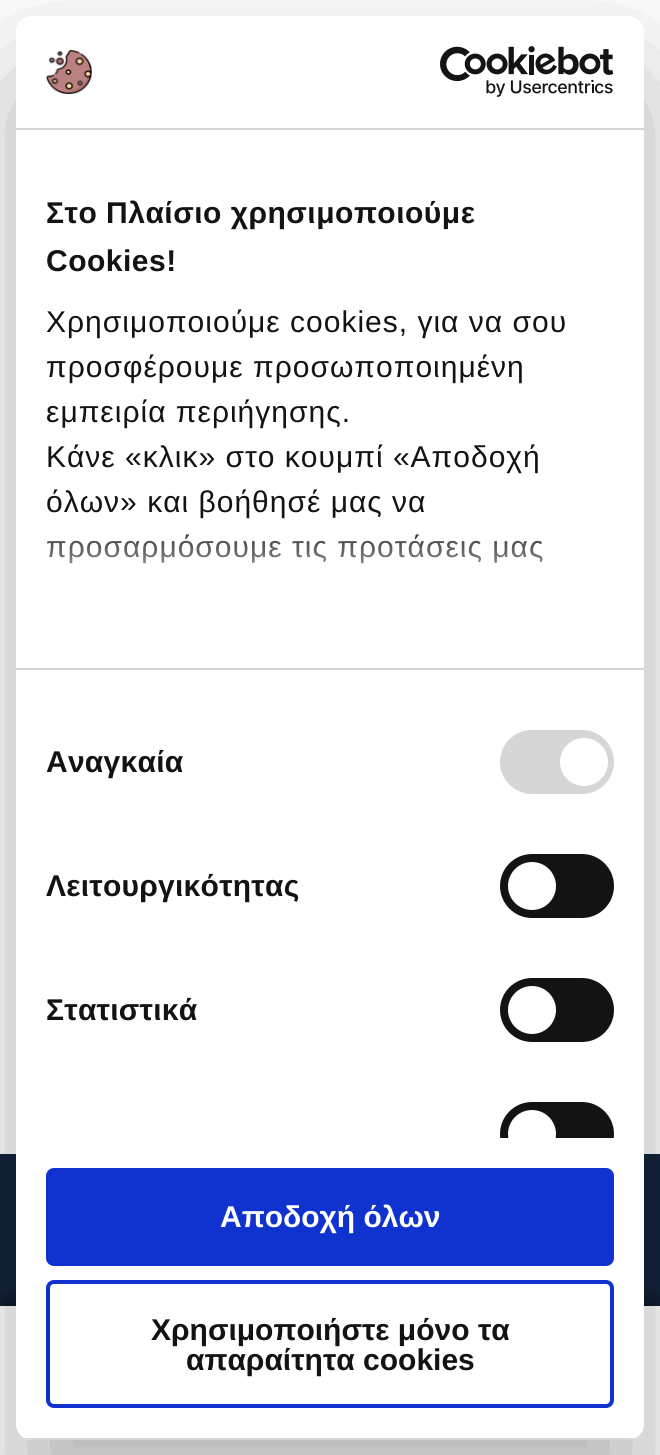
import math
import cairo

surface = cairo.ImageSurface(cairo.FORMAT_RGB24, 660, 1455)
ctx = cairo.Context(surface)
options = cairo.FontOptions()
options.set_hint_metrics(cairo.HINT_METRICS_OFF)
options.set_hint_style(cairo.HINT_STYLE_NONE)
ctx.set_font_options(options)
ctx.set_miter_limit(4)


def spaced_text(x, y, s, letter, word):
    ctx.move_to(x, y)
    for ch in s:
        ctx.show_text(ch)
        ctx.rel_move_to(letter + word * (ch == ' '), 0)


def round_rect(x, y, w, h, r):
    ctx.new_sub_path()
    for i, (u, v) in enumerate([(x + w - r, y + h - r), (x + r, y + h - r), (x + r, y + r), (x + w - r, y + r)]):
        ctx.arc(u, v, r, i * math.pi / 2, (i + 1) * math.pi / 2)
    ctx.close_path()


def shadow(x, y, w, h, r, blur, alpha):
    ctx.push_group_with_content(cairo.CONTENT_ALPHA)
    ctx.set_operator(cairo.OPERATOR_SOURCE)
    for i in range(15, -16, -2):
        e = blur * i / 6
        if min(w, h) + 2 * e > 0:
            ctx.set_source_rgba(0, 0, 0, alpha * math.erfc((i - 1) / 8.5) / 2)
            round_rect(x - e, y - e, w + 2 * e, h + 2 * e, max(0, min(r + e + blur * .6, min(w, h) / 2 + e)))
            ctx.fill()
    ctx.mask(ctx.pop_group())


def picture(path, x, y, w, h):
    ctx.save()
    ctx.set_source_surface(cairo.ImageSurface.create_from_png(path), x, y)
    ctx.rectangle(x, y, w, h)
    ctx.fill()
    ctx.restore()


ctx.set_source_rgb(1, 1, 1)
ctx.paint()
ctx.set_source_rgb(0.071, 0.137, 0.227)
ctx.rectangle(0, 1154, 660, 152)
ctx.fill()
ctx.set_source_rgb(0, 0, 0)
shadow(0, 1298, 660, 150, 0, 4, 0.25)
ctx.set_source_rgb(1, 1, 1)
ctx.rectangle(0, 1306, 660, 149)
ctx.fill()
ctx.set_source_rgb(0, 0, 0)
shadow(16, 80, 628, 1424, 16, 68, 0.3)
ctx.set_source_rgb(1, 1, 1)
round_rect(16, 16, 628, 1424, 16)
ctx.fill()
ctx.set_source_rgb(0.839, 0.839, 0.839)
ctx.rectangle(16, 128, 628, 2)
ctx.fill()
picture("img1.png", 46, 49, 46, 45)
picture("img2.png", 440, 46, 174, 51)
ctx.rectangle(16, 668, 628, 2)
ctx.fill()
ctx.select_font_face("Liberation Sans", cairo.FONT_SLANT_NORMAL, cairo.FONT_WEIGHT_BOLD)
ctx.set_font_size(30)
ctx.set_source_rgb(0.078, 0.078, 0.078)
spaced_text(46, 223, "Στο Πλαίσιο χρησιμοποιούμε", 0.5, 0)
spaced_text(46, 271, "Cookies!", 0.5, 0)
ctx.select_font_face("Liberation Sans")
spaced_text(46, 332, "Χρησιμοποιούμε cookies, για να σου", 1, 0)
spaced_text(46, 377, "προσφέρουμε προσωποποιημένη", 1, 0)
spaced_text(46, 422, "εμπειρία περιήγησης.", 1, 0)
spaced_text(46, 467, "Κάνε «κλικ» στο κουμπί «Αποδοχή", 1, 0)
spaced_text(46, 512, "όλων» και βοήθησέ μας να", 1, 0)
spaced_text(46, 557, "προσαρμόσουμε τις προτάσεις μας", 1, 0)
gradient = cairo.LinearGradient(317, 668, 317, 518)
gradient.add_color_stop_rgba(0, 1, 1, 1, 1)
gradient.add_color_stop_rgba(0.5, 1, 1, 1, 0.8)
gradient.add_color_stop_rgba(1, 1, 1, 1, 0)
ctx.set_source(gradient)
ctx.rectangle(47, 534, 496, 30)
ctx.fill()
ctx.select_font_face("Liberation Sans", cairo.FONT_SLANT_NORMAL, cairo.FONT_WEIGHT_BOLD)
ctx.set_source_rgb(0.078, 0.078, 0.078)
spaced_text(46, 772, "Αναγκαία", 0.25, 0)
ctx.set_source_rgb(0.839, 0.839, 0.839)
round_rect(500, 730, 114, 64, 32)
ctx.fill()
ctx.set_source_rgb(1, 1, 1)
ctx.arc(584, 762, 24, 0, 2 * math.pi)
ctx.fill()
ctx.set_source_rgb(0.078, 0.078, 0.078)
spaced_text(46, 896, "Λειτουργικότητας", 0.25, 0)
round_rect(500, 854, 114, 64, 32)
ctx.fill()
ctx.set_source_rgb(1, 1, 1)
ctx.arc(532, 886, 24, 0, 2 * math.pi)
ctx.fill()
ctx.set_source_rgb(0.078, 0.078, 0.078)
spaced_text(46, 1020, "Στατιστικά", 0.25, 0)
round_rect(500, 978, 114, 64, 32)
ctx.fill()
ctx.set_source_rgb(1, 1, 1)
ctx.arc(532, 1010, 24, 0, 2 * math.pi)
ctx.fill()
ctx.save()
ctx.rectangle(16, 130, 628, 1008)
ctx.clip()
ctx.set_source_rgb(0.078, 0.078, 0.078)
round_rect(500, 1102, 114, 64, 32)
ctx.fill()
ctx.set_source_rgb(1, 1, 1)
ctx.arc(532, 1134, 24, 0, 2 * math.pi)
ctx.fill()
ctx.restore()
ctx.save()
round_rect(16, 16, 628, 1424, 16)
ctx.clip()
ctx.set_source_rgb(0.839, 0.839, 0.839)
ctx.rectangle(16, 1438, 628, 2)
ctx.fill()
ctx.restore()
ctx.set_source_rgb(0.063, 0.196, 0.812)
round_rect(48, 1170, 564, 94, 6)
ctx.fill_preserve()
ctx.set_line_width(4)
ctx.stroke()
ctx.set_source_rgb(1, 1, 1)
ctx.move_to(220, 1227)
ctx.show_text("Αποδοχή όλων")
round_rect(48, 1282, 564, 124, 6)
ctx.set_source_rgb(0.063, 0.196, 0.812)
ctx.stroke()
ctx.set_source_rgb(0.078, 0.078, 0.078)
ctx.move_to(151, 1340)
ctx.show_text("Χρησιμοποιήστε μόνο τα")
ctx.move_to(186, 1370)
ctx.show_text("απαραίτητα cookies")
surface.write_to_png("page.png")
